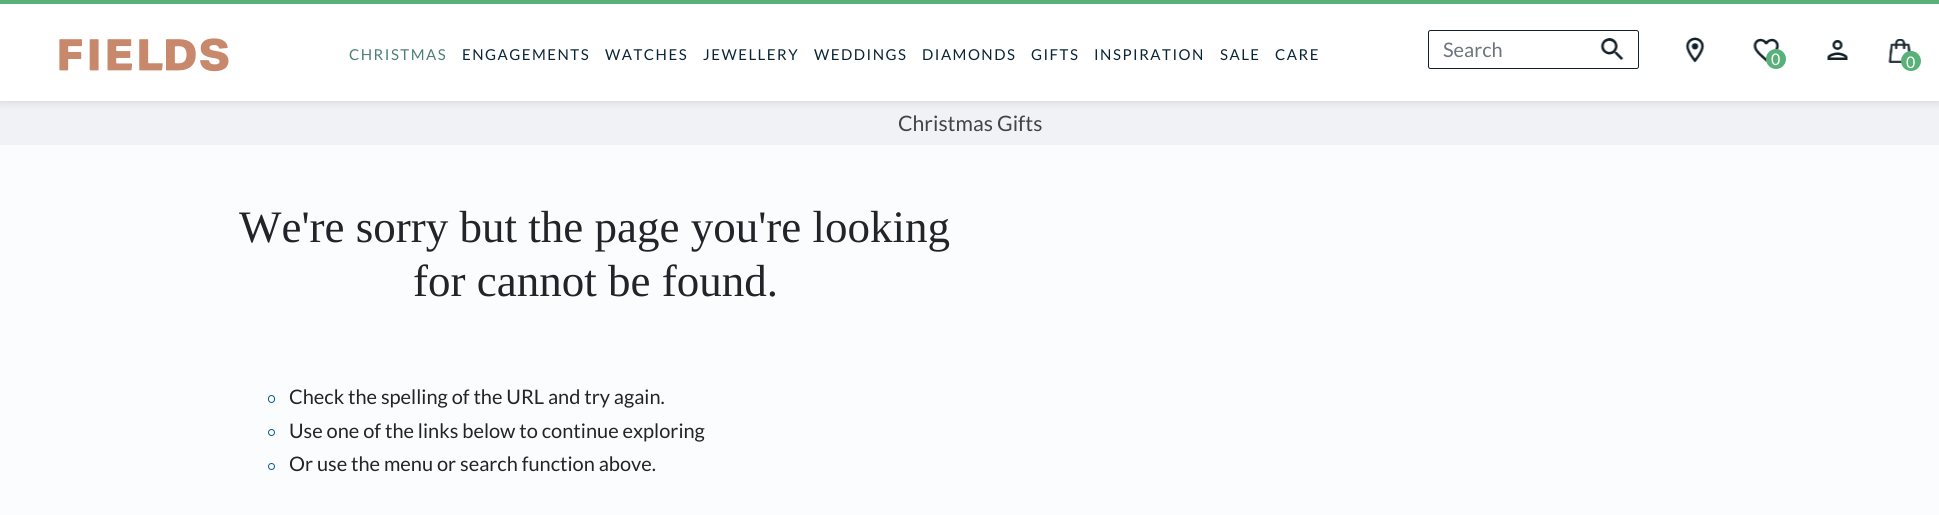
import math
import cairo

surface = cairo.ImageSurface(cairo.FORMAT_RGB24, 1939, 515)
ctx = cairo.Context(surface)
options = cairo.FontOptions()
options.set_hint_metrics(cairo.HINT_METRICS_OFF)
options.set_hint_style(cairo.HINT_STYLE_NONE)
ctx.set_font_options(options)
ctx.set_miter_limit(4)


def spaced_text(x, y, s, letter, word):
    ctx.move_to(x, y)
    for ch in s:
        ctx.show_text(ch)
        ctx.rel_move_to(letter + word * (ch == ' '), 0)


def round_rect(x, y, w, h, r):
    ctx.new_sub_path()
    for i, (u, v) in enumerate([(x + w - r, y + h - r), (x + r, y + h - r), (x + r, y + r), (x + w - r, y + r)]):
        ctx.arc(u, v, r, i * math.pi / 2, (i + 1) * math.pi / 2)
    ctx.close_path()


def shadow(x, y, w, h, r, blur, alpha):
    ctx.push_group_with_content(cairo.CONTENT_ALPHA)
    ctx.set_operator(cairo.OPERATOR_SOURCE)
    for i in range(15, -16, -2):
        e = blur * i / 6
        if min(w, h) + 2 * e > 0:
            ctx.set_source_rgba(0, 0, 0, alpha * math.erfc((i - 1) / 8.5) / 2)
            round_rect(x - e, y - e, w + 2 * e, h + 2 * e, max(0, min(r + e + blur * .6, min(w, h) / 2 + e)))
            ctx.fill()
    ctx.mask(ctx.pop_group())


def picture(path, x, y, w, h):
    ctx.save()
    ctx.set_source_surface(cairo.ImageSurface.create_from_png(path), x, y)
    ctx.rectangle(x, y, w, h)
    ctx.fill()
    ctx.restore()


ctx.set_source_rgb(0.984, 0.988, 0.992)
ctx.paint()
ctx.set_source_rgb(0.941, 0.949, 0.961)
ctx.rectangle(0, 101, 1939, 44)
ctx.fill()
ctx.set_source_rgb(0, 0, 0)
shadow(0, 0, 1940, 101, 0, 5, 0.15)
ctx.set_source_rgb(1, 1, 1)
ctx.rectangle(0, 4, 1939, 97)
ctx.fill()
ctx.set_source_rgb(0.345, 0.694, 0.471)
ctx.rectangle(0, 0, 1939, 4)
ctx.fill()
picture("img1.png", 59, 38, 170, 34)
ctx.select_font_face("Lato")
ctx.set_font_size(15)
ctx.set_source_rgb(0.302, 0.494, 0.471)
spaced_text(349, 60, "CHRISTMAS", 1.5, 0)
ctx.set_source_rgb(0.043, 0.145, 0.212)
spaced_text(462, 60, "ENGAGEMENTS", 1.5, 0)
spaced_text(605, 60, "WATCHES", 1.5, 0)
spaced_text(703, 60, "JEWELLERY", 1.5, 0)
spaced_text(814, 60, "WEDDINGS", 1.5, 0)
spaced_text(922, 60, "DIAMONDS", 1.5, 0)
spaced_text(1031, 60, "GIFTS", 1.5, 0)
spaced_text(1094, 60, "INSPIRATION", 1.5, 0)
spaced_text(1220, 60, "SALE", 1.5, 0)
spaced_text(1275, 60, "CARE", 1.5, 0)
round_rect(1428.5, 30.5, 210, 38, 2)
ctx.set_source_rgb(0.071, 0.125, 0.161)
ctx.set_line_width(1)
ctx.stroke()
ctx.set_font_size(20)
ctx.set_source_rgb(0.424, 0.459, 0.49)
ctx.move_to(1443, 57)
ctx.show_text("Search")
picture("img2.png", 1600, 38, 24, 22)
picture("img3.png", 1685, 37, 20, 26)
picture("img4.png", 1827, 40, 21, 20)
picture("img5.png", 1753, 38, 27, 24)
ctx.set_source_rgb(0.345, 0.694, 0.471)
ctx.arc(1776, 59, 10, 0, 2 * math.pi)
ctx.fill()
ctx.set_font_size(16)
ctx.set_source_rgb(1, 1, 1)
ctx.move_to(1771, 65)
ctx.show_text("0")
picture("img6.png", 1888, 39, 23, 24)
ctx.set_source_rgb(0.345, 0.694, 0.471)
ctx.arc(1911, 61, 10, 0, 2 * math.pi)
ctx.fill()
ctx.set_source_rgb(1, 1, 1)
ctx.move_to(1906, 68)
ctx.show_text("0")
ctx.set_font_size(21.25)
ctx.set_source_rgb(0.267, 0.267, 0.267)
ctx.move_to(898, 131)
ctx.show_text("Christmas Gifts")
ctx.select_font_face("Liberation Serif")
ctx.set_font_size(45)
ctx.set_source_rgb(0.129, 0.145, 0.161)
ctx.move_to(239, 242)
ctx.show_text("We're sorry but the page you're looking")
ctx.move_to(413, 296)
ctx.show_text("for cannot be found.")
round_rect(268.5, 395.5, 6, 7, 3)
ctx.set_source_rgb(0.051, 0.353, 0.549)
ctx.stroke()
ctx.select_font_face("Lato")
ctx.set_font_size(20)
ctx.set_source_rgb(0.129, 0.145, 0.161)
ctx.move_to(289, 404)
ctx.show_text("Check the spelling of the URL and try again.")
ctx.new_path()
ctx.arc(271.5, 432.5, 3, 0, 2 * math.pi)
ctx.set_source_rgb(0.051, 0.353, 0.549)
ctx.stroke()
ctx.set_source_rgb(0.129, 0.145, 0.161)
ctx.move_to(289, 438)
ctx.show_text("Use one of the links below to continue exploring")
ctx.new_path()
ctx.arc(271.5, 466.5, 3, 0, 2 * math.pi)
ctx.set_source_rgb(0.051, 0.353, 0.549)
ctx.stroke()
ctx.set_source_rgb(0.129, 0.145, 0.161)
ctx.move_to(289, 471)
ctx.show_text("Or use the menu or search function above.")
surface.write_to_png("page.png")
